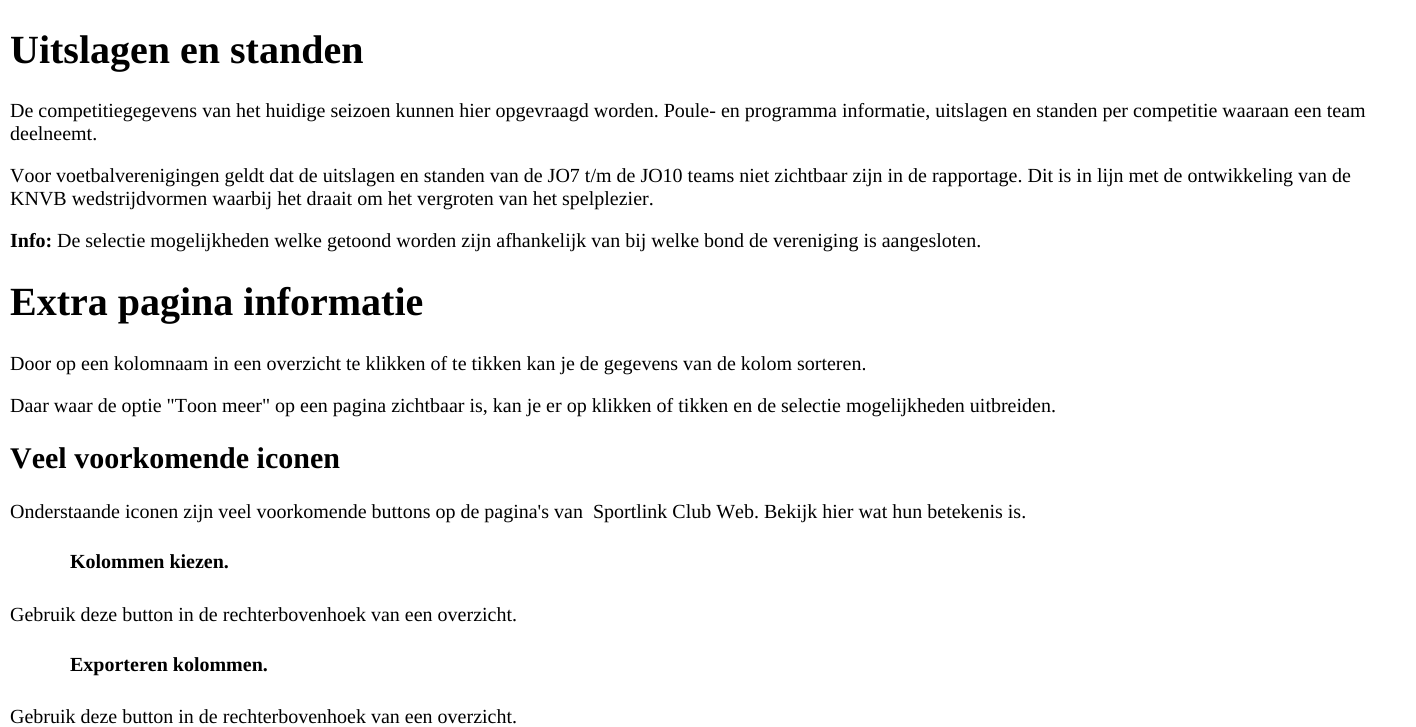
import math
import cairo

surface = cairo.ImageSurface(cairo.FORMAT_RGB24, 1416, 727)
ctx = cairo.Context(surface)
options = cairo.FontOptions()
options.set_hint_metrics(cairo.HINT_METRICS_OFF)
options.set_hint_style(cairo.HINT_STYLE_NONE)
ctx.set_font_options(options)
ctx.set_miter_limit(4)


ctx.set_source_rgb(1, 1, 1)
ctx.paint()
ctx.select_font_face("Liberation Serif", cairo.FONT_SLANT_NORMAL, cairo.FONT_WEIGHT_BOLD)
ctx.set_font_size(40)
ctx.set_source_rgb(0, 0, 0)
ctx.move_to(10, 63)
ctx.show_text("Uitslagen en standen")
ctx.select_font_face("Liberation Serif")
ctx.set_font_size(20)
ctx.move_to(10, 117)
ctx.show_text("De competitiegegevens van het huidige seizoen kunnen hier opgevraagd worden. Poule- en programma informatie, uitslagen en standen per competitie waaraan een team")
ctx.move_to(10, 140)
ctx.show_text("deelneemt.")
ctx.move_to(10, 182)
ctx.show_text("Voor voetbalverenigingen geldt dat de uitslagen en standen van de JO7 t/m de JO10 teams niet zichtbaar zijn in de rapportage. Dit is in lijn met de ontwikkeling van de")
ctx.move_to(10, 205)
ctx.show_text("KNVB wedstrijdvormen waarbij het draait om het vergroten van het spelplezier.")
ctx.select_font_face("Liberation Serif", cairo.FONT_SLANT_NORMAL, cairo.FONT_WEIGHT_BOLD)
ctx.move_to(10, 247)
ctx.show_text("Info:")
ctx.select_font_face("Liberation Serif")
ctx.move_to(57, 247)
ctx.show_text("De selectie mogelijkheden welke getoond worden zijn afhankelijk van bij welke bond de vereniging is aangesloten.")
ctx.select_font_face("Liberation Serif", cairo.FONT_SLANT_NORMAL, cairo.FONT_WEIGHT_BOLD)
ctx.set_font_size(40)
ctx.move_to(10, 315)
ctx.show_text("Extra pagina informatie")
ctx.select_font_face("Liberation Serif")
ctx.set_font_size(20)
ctx.move_to(10, 370)
ctx.show_text("Door op een kolomnaam in een overzicht te klikken of te tikken kan je de gegevens van de kolom sorteren.")
ctx.move_to(10, 412)
ctx.show_text("Daar waar de optie \"Toon meer\" op een pagina zichtbaar is, kan je er op klikken of tikken en de selectie mogelijkheden uitbreiden.")
ctx.select_font_face("Liberation Serif", cairo.FONT_SLANT_NORMAL, cairo.FONT_WEIGHT_BOLD)
ctx.set_font_size(30)
ctx.move_to(10, 468)
ctx.show_text("Veel voorkomende iconen")
ctx.select_font_face("Liberation Serif")
ctx.set_font_size(20)
ctx.move_to(10, 518)
ctx.show_text("Onderstaande iconen zijn veel voorkomende buttons op de pagina's van  Sportlink Club Web. Bekijk hier wat hun betekenis is.")
ctx.select_font_face("Liberation Serif", cairo.FONT_SLANT_NORMAL, cairo.FONT_WEIGHT_BOLD)
ctx.move_to(70, 568)
ctx.show_text("Kolommen kiezen.")
ctx.select_font_face("Liberation Serif")
ctx.move_to(10, 621)
ctx.show_text("Gebruik deze button in de rechterbovenhoek van een overzicht.")
ctx.select_font_face("Liberation Serif", cairo.FONT_SLANT_NORMAL, cairo.FONT_WEIGHT_BOLD)
ctx.move_to(70, 671)
ctx.show_text("Exporteren kolommen.")
ctx.select_font_face("Liberation Serif")
ctx.move_to(10, 723)
ctx.show_text("Gebruik deze button in de rechterbovenhoek van een overzicht.")
surface.write_to_png("page.png")
